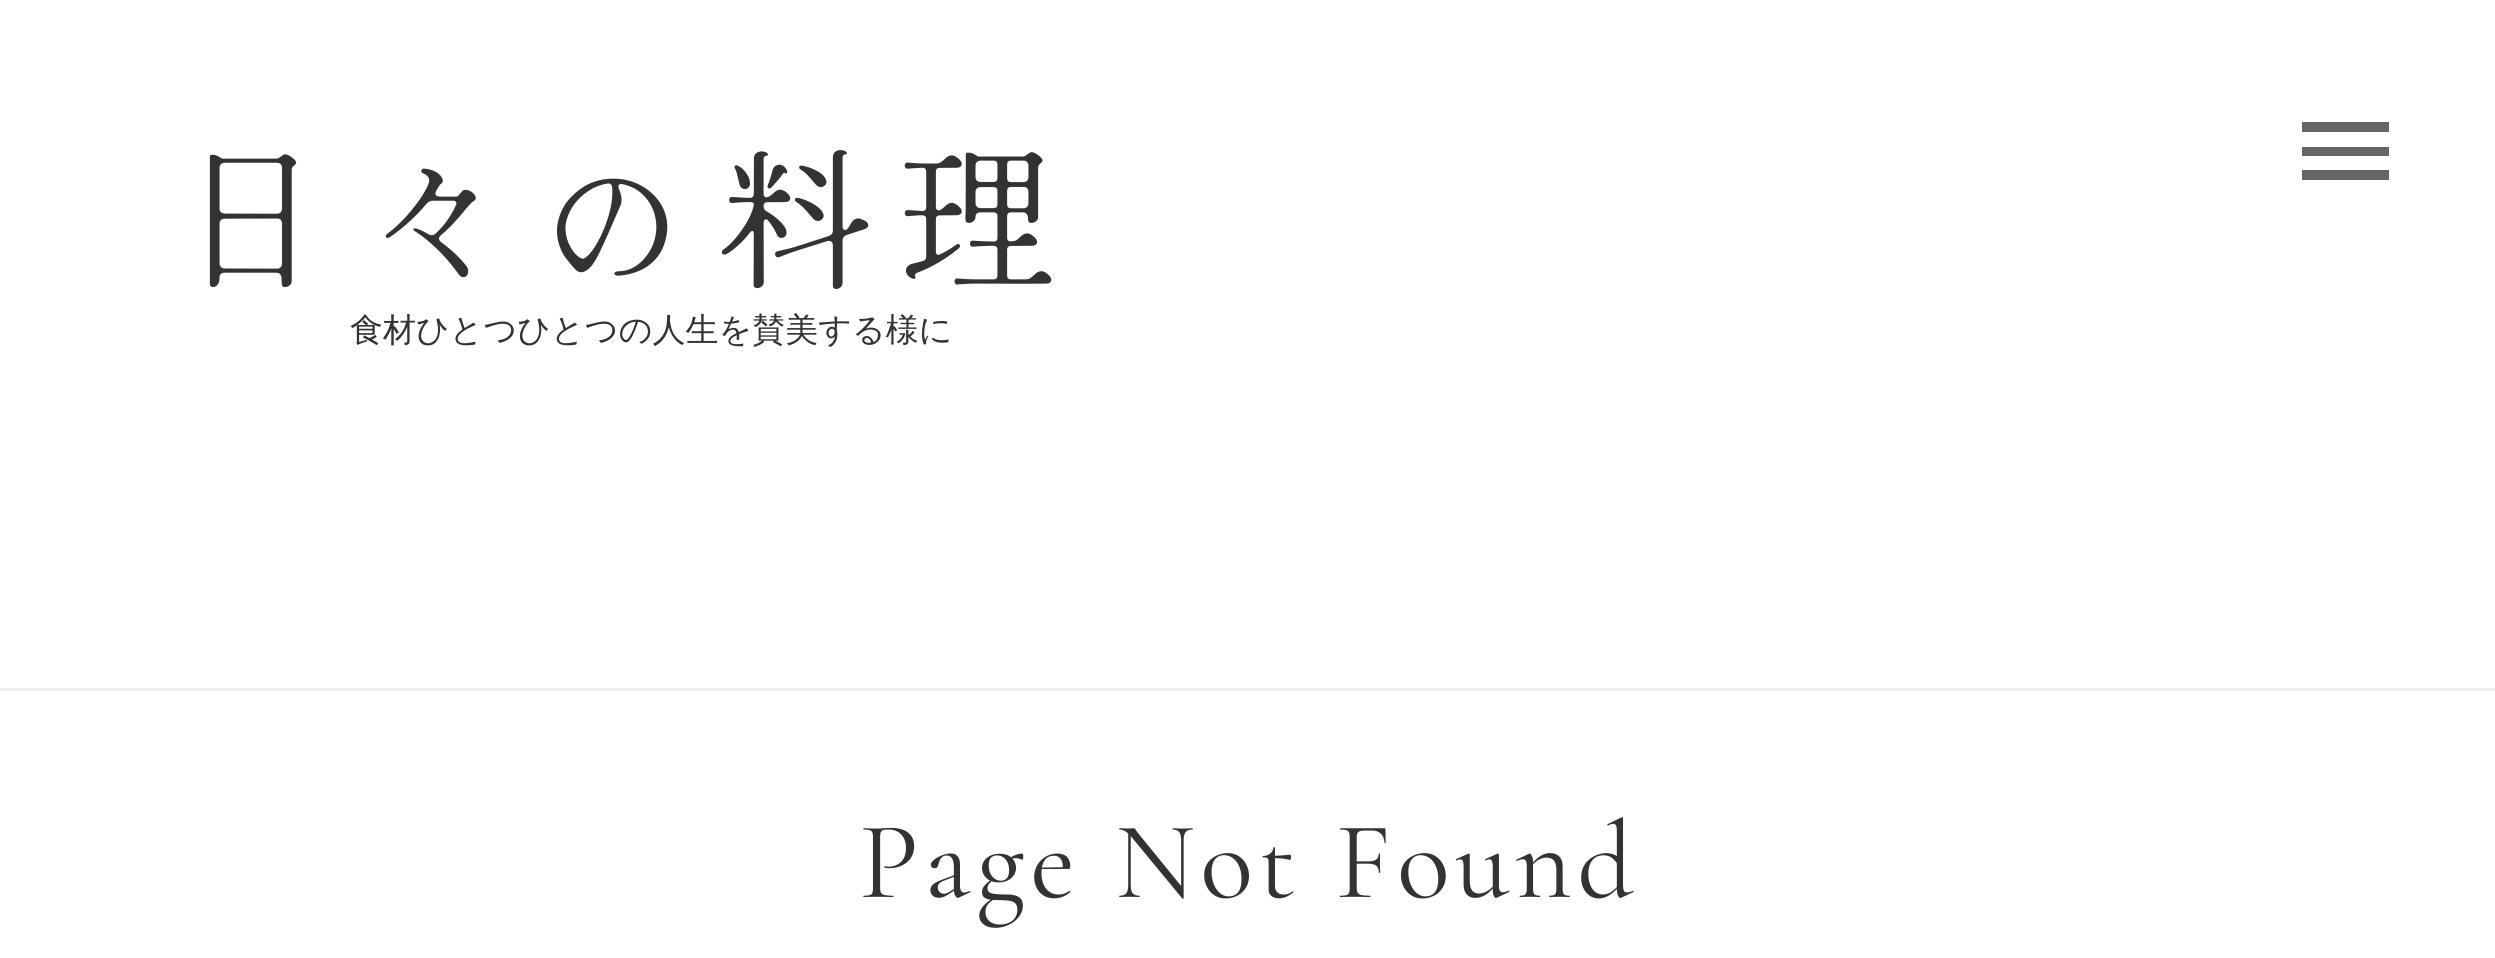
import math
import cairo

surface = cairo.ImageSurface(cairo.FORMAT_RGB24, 2495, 958)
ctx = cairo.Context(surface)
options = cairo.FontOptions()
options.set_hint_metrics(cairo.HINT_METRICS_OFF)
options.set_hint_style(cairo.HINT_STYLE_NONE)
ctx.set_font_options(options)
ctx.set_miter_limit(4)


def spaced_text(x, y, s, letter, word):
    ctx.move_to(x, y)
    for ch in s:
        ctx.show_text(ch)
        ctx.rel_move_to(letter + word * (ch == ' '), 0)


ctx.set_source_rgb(1, 1, 1)
ctx.paint()
ctx.select_font_face("Hina Mincho")
ctx.set_font_size(151.25)
ctx.set_source_rgb(0.2, 0.2, 0.2)
spaced_text(176, 278, "日々の料理", 30.25, 0)
ctx.select_font_face("WenQuanYi Zen Hei Medium")
ctx.set_font_size(33)
ctx.move_to(350, 341)
ctx.show_text("食材ひとつひとつの人生を賛美する様に")
ctx.set_source_rgb(0.4, 0.4, 0.4)
ctx.new_path()
ctx.move_to(2302, 122)
ctx.line_to(2389, 122)
ctx.line_to(2389, 132)
ctx.line_to(2302, 132)
ctx.close_path()
ctx.move_to(2302, 156)
ctx.line_to(2302, 147)
ctx.line_to(2389, 147)
ctx.line_to(2389, 156)
ctx.close_path()
ctx.move_to(2302, 180)
ctx.line_to(2302, 170)
ctx.line_to(2389, 170)
ctx.line_to(2389, 180)
ctx.close_path()
ctx.fill()
ctx.set_source_rgb(0.933, 0.933, 0.933)
ctx.rectangle(0, 688, 2495, 3)
ctx.fill()
ctx.select_font_face("Cormorant Garamond")
ctx.set_font_size(110)
ctx.set_source_rgb(0.2, 0.2, 0.2)
spaced_text(859, 897, "Page Not Found", 5.5, 3)
surface.write_to_png("page.png")
